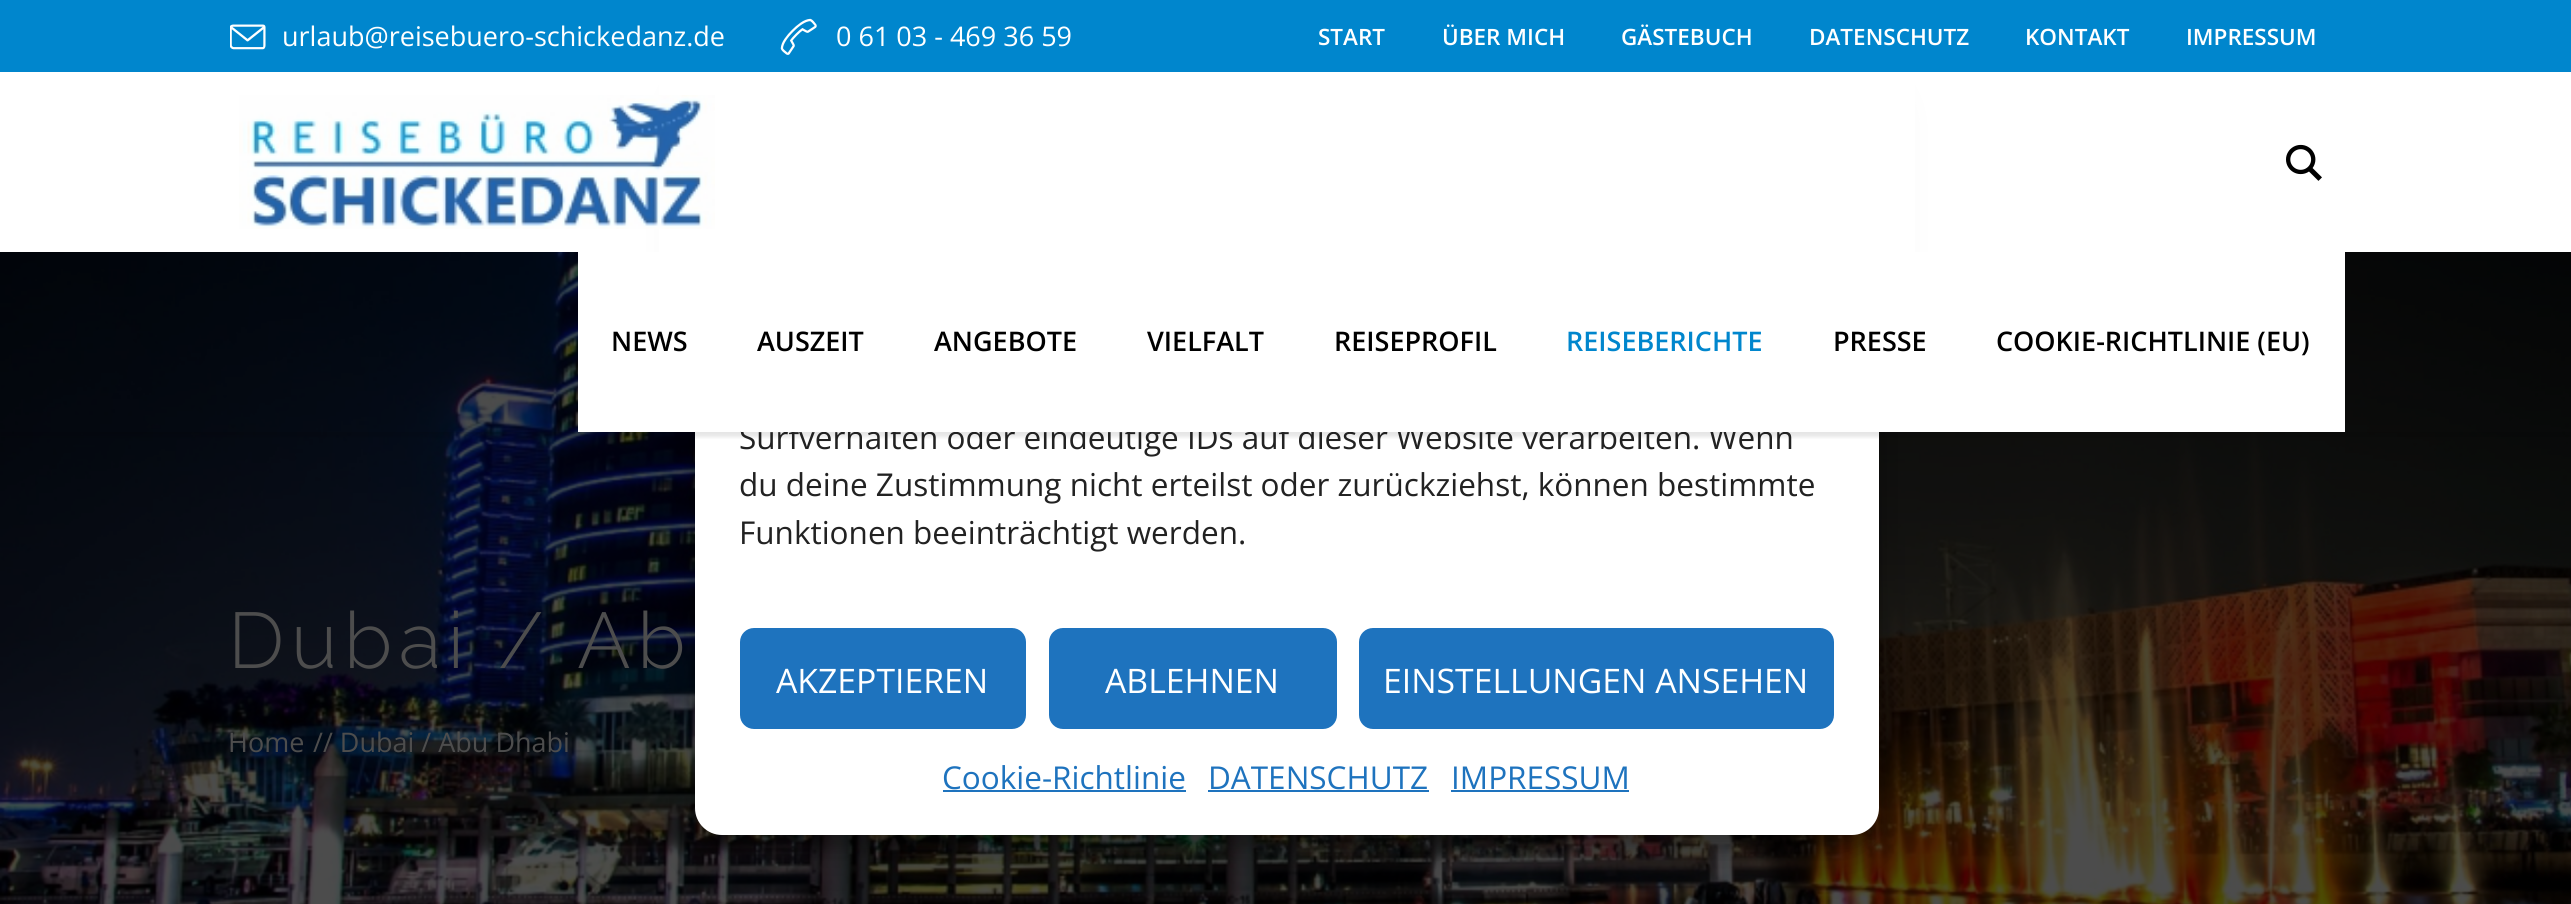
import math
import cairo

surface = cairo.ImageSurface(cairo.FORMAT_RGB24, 2571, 904)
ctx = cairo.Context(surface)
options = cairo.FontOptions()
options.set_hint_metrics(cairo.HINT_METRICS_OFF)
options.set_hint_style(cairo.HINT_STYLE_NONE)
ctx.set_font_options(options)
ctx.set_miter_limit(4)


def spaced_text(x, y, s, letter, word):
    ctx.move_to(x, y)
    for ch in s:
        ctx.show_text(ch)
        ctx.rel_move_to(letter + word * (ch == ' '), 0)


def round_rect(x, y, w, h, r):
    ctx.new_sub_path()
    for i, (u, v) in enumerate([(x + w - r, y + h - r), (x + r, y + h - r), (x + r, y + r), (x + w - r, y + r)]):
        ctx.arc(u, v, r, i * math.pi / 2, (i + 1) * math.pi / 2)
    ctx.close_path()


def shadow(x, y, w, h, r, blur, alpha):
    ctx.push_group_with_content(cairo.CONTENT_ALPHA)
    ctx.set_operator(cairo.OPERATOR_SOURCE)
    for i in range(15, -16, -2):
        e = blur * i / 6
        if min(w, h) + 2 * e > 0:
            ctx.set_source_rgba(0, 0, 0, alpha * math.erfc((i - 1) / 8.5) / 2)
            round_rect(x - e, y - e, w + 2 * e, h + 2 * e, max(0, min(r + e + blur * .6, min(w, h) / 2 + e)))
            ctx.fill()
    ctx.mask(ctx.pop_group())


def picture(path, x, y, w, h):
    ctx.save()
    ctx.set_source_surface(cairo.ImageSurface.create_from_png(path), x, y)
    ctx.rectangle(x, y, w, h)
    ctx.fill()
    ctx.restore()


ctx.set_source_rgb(1, 1, 1)
ctx.paint()
picture("img5.png", 0, 252, 2571, 652)
ctx.set_source_rgb(0, 0, 0)
shadow(695, 81, 1184, 767, 27, 7, 0.23)
shadow(695, 90, 1184, 767, 27, 22.5, 0.19)
ctx.set_source_rgb(1, 1, 1)
round_rect(695, 68, 1184, 767, 27)
ctx.fill()
ctx.save()
ctx.rectangle(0, 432, 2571, 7)
ctx.clip()
ctx.set_source_rgb(0, 0, 0)
shadow(0, 5, 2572, 432, 0, 2, 0.1)
ctx.restore()
ctx.set_source_rgb(0, 0.525, 0.804)
ctx.rectangle(0, 0, 2571, 72)
ctx.fill()
picture("img1.png", 230, 24, 36, 26)
ctx.select_font_face("Open Sans")
ctx.set_font_size(27)
ctx.set_source_rgb(1, 1, 1)
ctx.move_to(282, 46)
ctx.show_text("urlaub@reisebuero-schickedanz.de")
picture("img2.png", 780, 18, 37, 37)
ctx.move_to(836, 46)
ctx.show_text("0 61 03 - 469 36 59")
ctx.select_font_face("Open Sans SemiBold")
ctx.set_font_size(22.5)
ctx.move_to(1318, 45)
ctx.show_text("START")
ctx.move_to(1442, 45)
ctx.show_text("ÜBER MICH")
ctx.move_to(1621, 45)
ctx.show_text("GÄSTEBUCH")
ctx.move_to(1809, 45)
ctx.show_text("DATENSCHUTZ")
ctx.move_to(2025, 45)
ctx.show_text("KONTAKT")
ctx.move_to(2186, 45)
ctx.show_text("IMPRESSUM")
ctx.rectangle(659, 72, 1256, 180)
ctx.fill()
picture("img3.png", 239, 95, 476, 134)
picture("img4.png", 2286, 144, 36, 37)
ctx.rectangle(578, 252, 117, 180)
ctx.fill()
ctx.set_font_size(27)
ctx.set_source_rgb(0, 0, 0)
ctx.move_to(611, 351)
ctx.show_text("NEWS")
ctx.select_font_face("Open Sans")
ctx.set_font_size(31.5)
ctx.set_source_rgb(0.133, 0.133, 0.133)
ctx.move_to(739, 449)
ctx.show_text("Surfverhalten oder eindeutige IDs auf dieser Website verarbeiten. Wenn")
ctx.set_source_rgb(1, 1, 1)
ctx.rectangle(741, 424, 155, 8)
ctx.fill()
ctx.select_font_face("Open Sans SemiBold")
ctx.set_font_size(27)
ctx.set_source_rgb(0, 0, 0)
ctx.move_to(757, 351)
ctx.show_text("AUSZEIT")
ctx.set_source_rgb(1, 1, 1)
ctx.rectangle(909, 425, 189, 7)
ctx.fill()
ctx.set_source_rgb(0, 0, 0)
ctx.move_to(934, 351)
ctx.show_text("ANGEBOTE")
ctx.set_source_rgb(1, 1, 1)
ctx.rectangle(1127, 424, 164, 8)
ctx.fill()
ctx.set_source_rgb(0, 0, 0)
ctx.move_to(1147, 351)
ctx.show_text("VIELFALT")
ctx.set_source_rgb(1, 1, 1)
ctx.rectangle(1304, 425, 203, 7)
ctx.fill()
ctx.set_source_rgb(0, 0, 0)
ctx.move_to(1334, 351)
ctx.show_text("REISEPROFIL")
ctx.set_source_rgb(1, 1, 1)
ctx.rectangle(1546, 425, 241, 7)
ctx.fill()
ctx.set_source_rgb(0, 0.525, 0.804)
ctx.move_to(1566, 351)
ctx.show_text("REISEBERICHTE")
ctx.set_source_rgb(1, 1, 1)
ctx.rectangle(1879, 252, 466, 180)
ctx.fill()
ctx.set_source_rgb(0, 0, 0)
ctx.move_to(1833, 351)
ctx.show_text("PRESSE")
ctx.move_to(1996, 351)
ctx.show_text("COOKIE-RICHTLINIE (EU)")
ctx.select_font_face("Raleway Light")
ctx.set_font_size(78.75)
ctx.set_source_rgb(0.302, 0.302, 0.302)
spaced_text(228, 668, "Dubai / Ab", 6.75, 0)
ctx.select_font_face("Open Sans")
ctx.set_font_size(27)
ctx.move_to(228, 752)
ctx.show_text("Home")
ctx.move_to(313, 752)
ctx.show_text("// Dubai / Abu Dhabi")
ctx.set_font_size(31.5)
ctx.set_source_rgb(0.133, 0.133, 0.133)
ctx.move_to(739, 496)
ctx.show_text("du deine Zustimmung nicht erteilst oder zurückziehst, können bestimmte")
ctx.move_to(739, 544)
ctx.show_text("Funktionen beeinträchtigt werden.")
ctx.set_source_rgb(0.118, 0.451, 0.745)
round_rect(741, 629, 284, 99, 13)
ctx.fill_preserve()
ctx.stroke()
ctx.set_font_size(33.75)
ctx.set_source_rgb(1, 1, 1)
ctx.move_to(776, 693)
ctx.show_text("AKZEPTIEREN")
ctx.set_source_rgb(0.118, 0.451, 0.745)
round_rect(1050, 629, 286, 99, 13)
ctx.fill_preserve()
ctx.stroke()
ctx.set_source_rgb(1, 1, 1)
ctx.move_to(1105, 693)
ctx.show_text("ABLEHNEN")
ctx.set_source_rgb(0.118, 0.451, 0.745)
round_rect(1360, 629, 473, 99, 13)
ctx.fill_preserve()
ctx.stroke()
ctx.set_source_rgb(1, 1, 1)
ctx.move_to(1383, 693)
ctx.show_text("EINSTELLUNGEN ANSEHEN")
ctx.set_font_size(31.5)
ctx.set_source_rgb(0.118, 0.451, 0.745)
ctx.move_to(942, 789)
ctx.show_text("Cookie-Richtlinie")
ctx.rectangle(943, 790, 243, 2)
ctx.fill()
ctx.move_to(1208, 789)
ctx.show_text("DATENSCHUTZ")
ctx.rectangle(1208, 790, 221, 2)
ctx.fill()
ctx.move_to(1451, 789)
ctx.show_text("IMPRESSUM")
ctx.rectangle(1451, 790, 178, 2)
ctx.fill()
surface.write_to_png("page.png")
